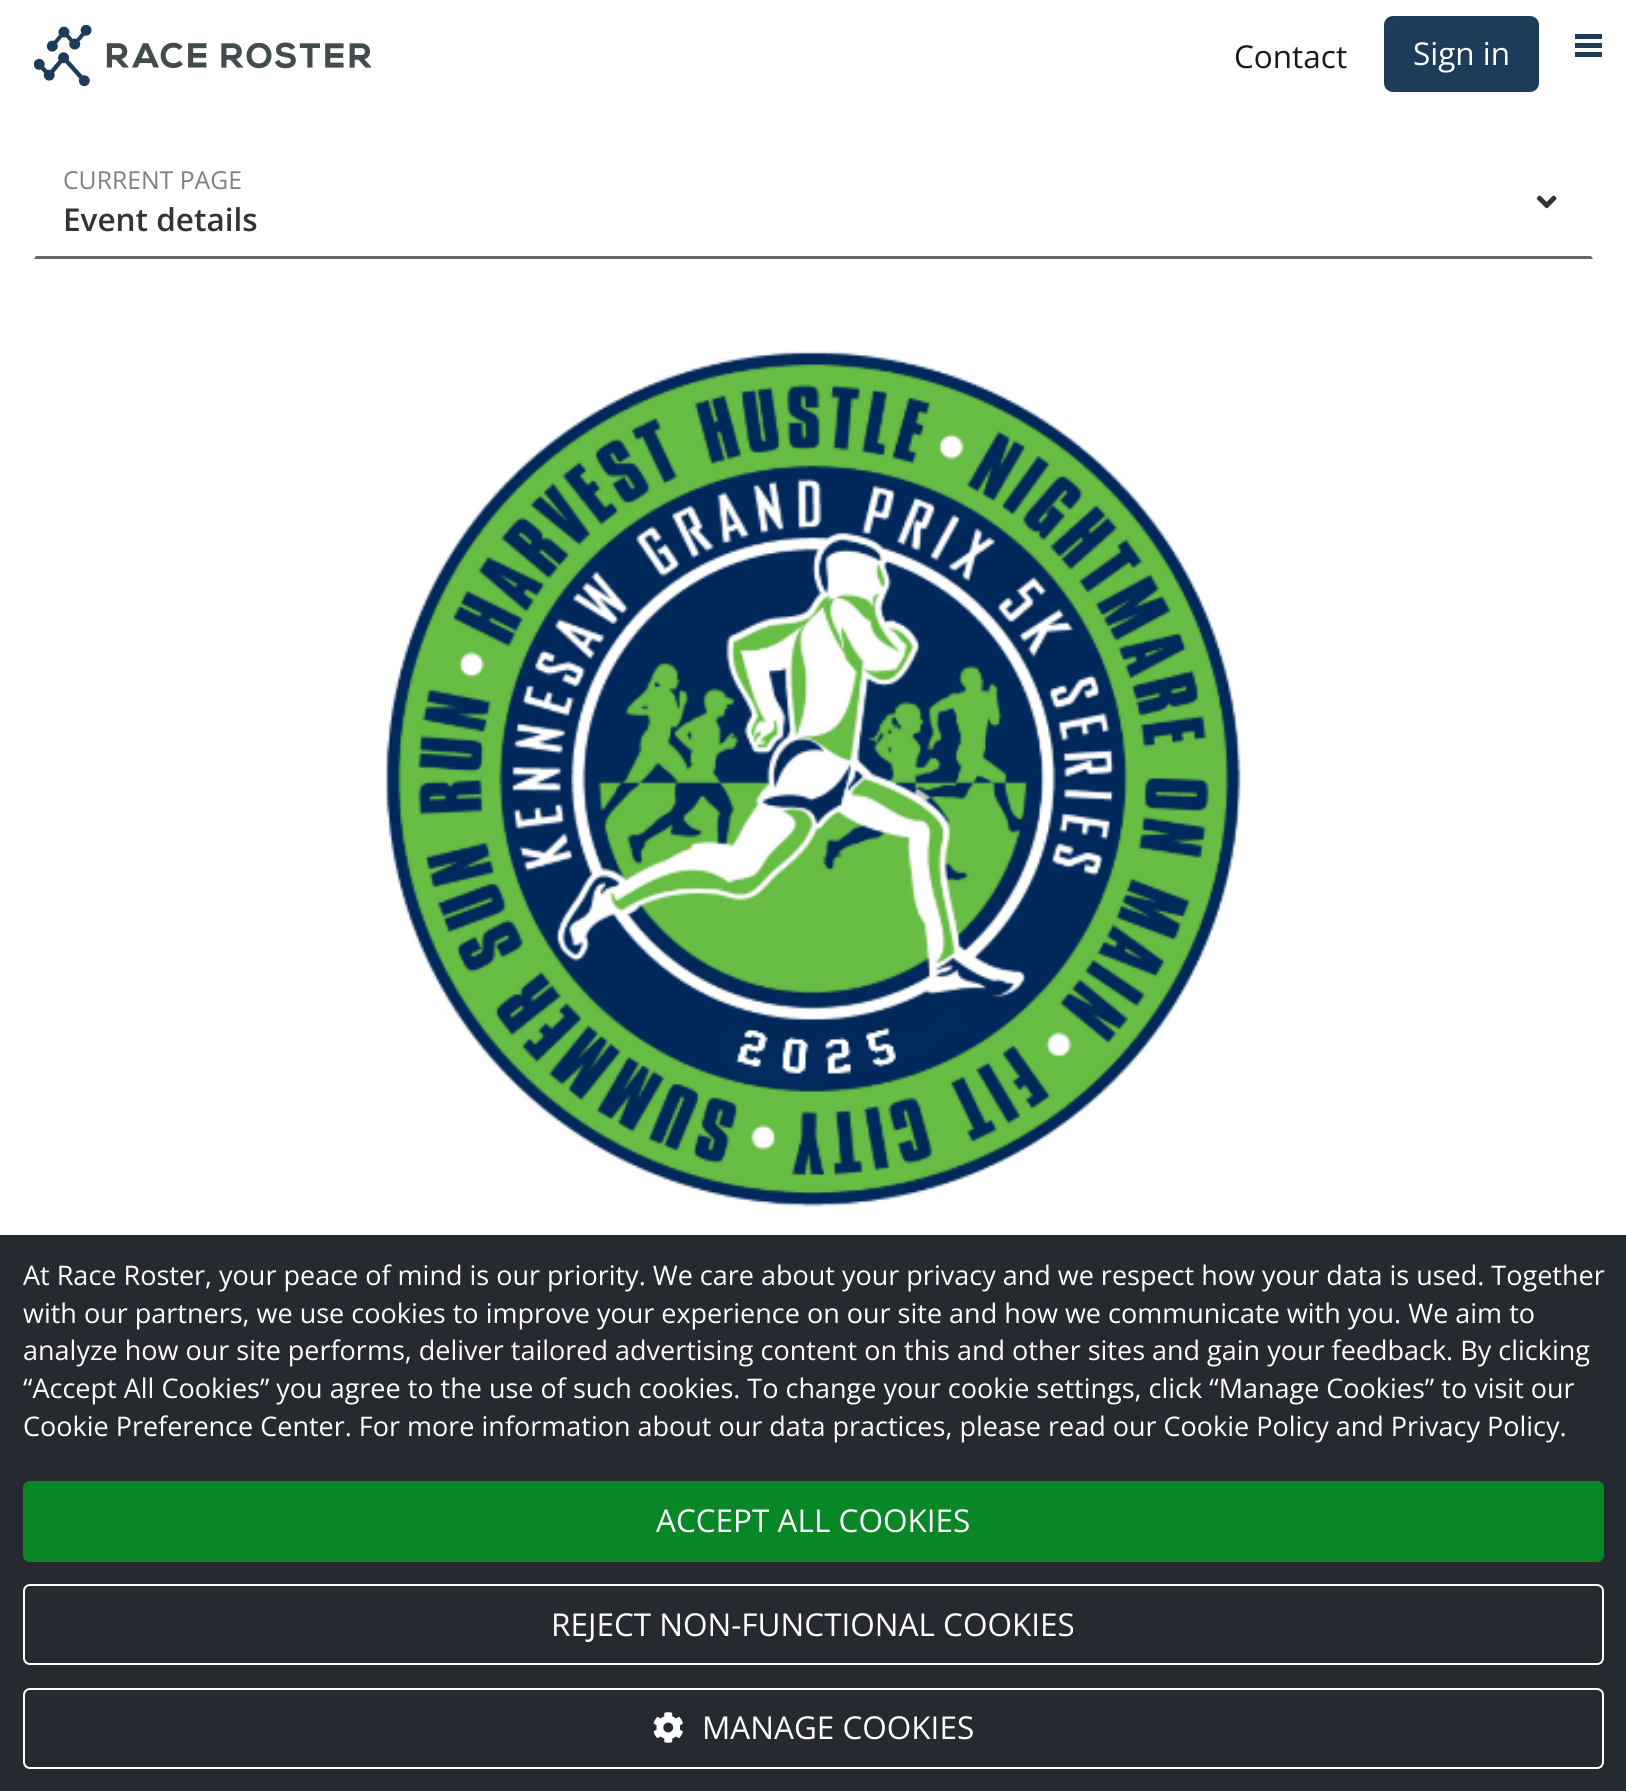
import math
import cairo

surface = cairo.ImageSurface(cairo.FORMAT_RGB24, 1626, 1791)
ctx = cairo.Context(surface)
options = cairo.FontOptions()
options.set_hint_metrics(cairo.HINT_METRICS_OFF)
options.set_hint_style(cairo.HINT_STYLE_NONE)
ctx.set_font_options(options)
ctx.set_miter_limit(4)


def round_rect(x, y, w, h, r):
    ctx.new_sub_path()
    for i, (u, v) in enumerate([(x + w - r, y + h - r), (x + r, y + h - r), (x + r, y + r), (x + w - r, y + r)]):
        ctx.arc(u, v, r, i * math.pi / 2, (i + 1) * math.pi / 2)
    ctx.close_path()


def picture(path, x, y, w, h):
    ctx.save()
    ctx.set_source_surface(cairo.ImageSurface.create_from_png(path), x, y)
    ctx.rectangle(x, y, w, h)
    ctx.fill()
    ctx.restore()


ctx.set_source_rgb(1, 1, 1)
ctx.paint()
picture("img1.png", 34, 25, 337, 62)
ctx.select_font_face("Open Sans")
ctx.set_font_size(31.5)
ctx.set_source_rgb(0.102, 0.102, 0.102)
ctx.move_to(1234, 68)
ctx.show_text("Contact")
ctx.set_source_rgb(0.114, 0.235, 0.349)
round_rect(1384, 16, 155, 76, 9)
ctx.fill()
ctx.set_source_rgb(1, 1, 1)
ctx.move_to(1413, 65)
ctx.show_text("Sign in")
ctx.set_source_rgb(0.114, 0.235, 0.349)
ctx.rectangle(1575, 34, 27, 5)
ctx.fill()
ctx.rectangle(1575, 43, 27, 5)
ctx.fill()
ctx.rectangle(1575, 52, 27, 5)
ctx.fill()
ctx.set_source_rgb(0.4, 0.4, 0.4)
ctx.new_path()
ctx.move_to(1593, 259)
ctx.line_to(34, 259)
ctx.line_to(36, 256)
ctx.line_to(1591, 256)
ctx.close_path()
ctx.fill()
ctx.set_font_size(24.75)
ctx.set_source_rgb(0.502, 0.502, 0.502)
ctx.move_to(63, 189)
ctx.show_text("CURRENT PAGE")
picture("img2.png", 1536, 195, 21, 14)
ctx.select_font_face("Open Sans SemiBold")
ctx.set_font_size(31.5)
ctx.set_source_rgb(0.2, 0.2, 0.2)
ctx.move_to(63, 231)
ctx.show_text("Event details")
picture("img3.png", 384, 350, 857, 857)
ctx.set_source_rgb(0.153, 0.161, 0.188)
ctx.rectangle(0, 1235, 1626, 556)
ctx.fill()
ctx.select_font_face("Open Sans")
ctx.set_font_size(27)
ctx.set_source_rgb(1, 1, 1)
ctx.move_to(23, 1285)
ctx.show_text("At Race Roster, your peace of mind is our priority. We care about your privacy and we respect how your data is used. Together")
ctx.move_to(23, 1323)
ctx.show_text("with our partners, we use cookies to improve your experience on our site and how we communicate with you. We aim to")
ctx.move_to(23, 1360)
ctx.show_text("analyze how our site performs, deliver tailored advertising content on this and other sites and gain your feedback. By clicking")
ctx.move_to(23, 1398)
ctx.show_text("“Accept All Cookies” you agree to the use of such cookies. To change your cookie settings, click “Manage Cookies” to visit our")
ctx.move_to(23, 1436)
ctx.show_text("Cookie Preference Center. For more information about our data practices, please read our Cookie Policy and Privacy Policy.")
ctx.set_source_rgb(0.035, 0.529, 0.149)
round_rect(23, 1481, 1581, 81, 7)
ctx.fill()
ctx.set_font_size(31.5)
ctx.set_source_rgb(1, 1, 1)
ctx.move_to(656, 1532)
ctx.show_text("ACCEPT ALL COOKIES")
round_rect(24, 1585, 1579, 79, 6)
ctx.stroke()
ctx.move_to(551, 1636)
ctx.show_text("REJECT NON-FUNCTIONAL COOKIES")
round_rect(24, 1689, 1579, 79, 6)
ctx.stroke()
picture("img4.png", 653, 1712, 30, 31)
ctx.move_to(702, 1739)
ctx.show_text("MANAGE COOKIES")
surface.write_to_png("page.png")
